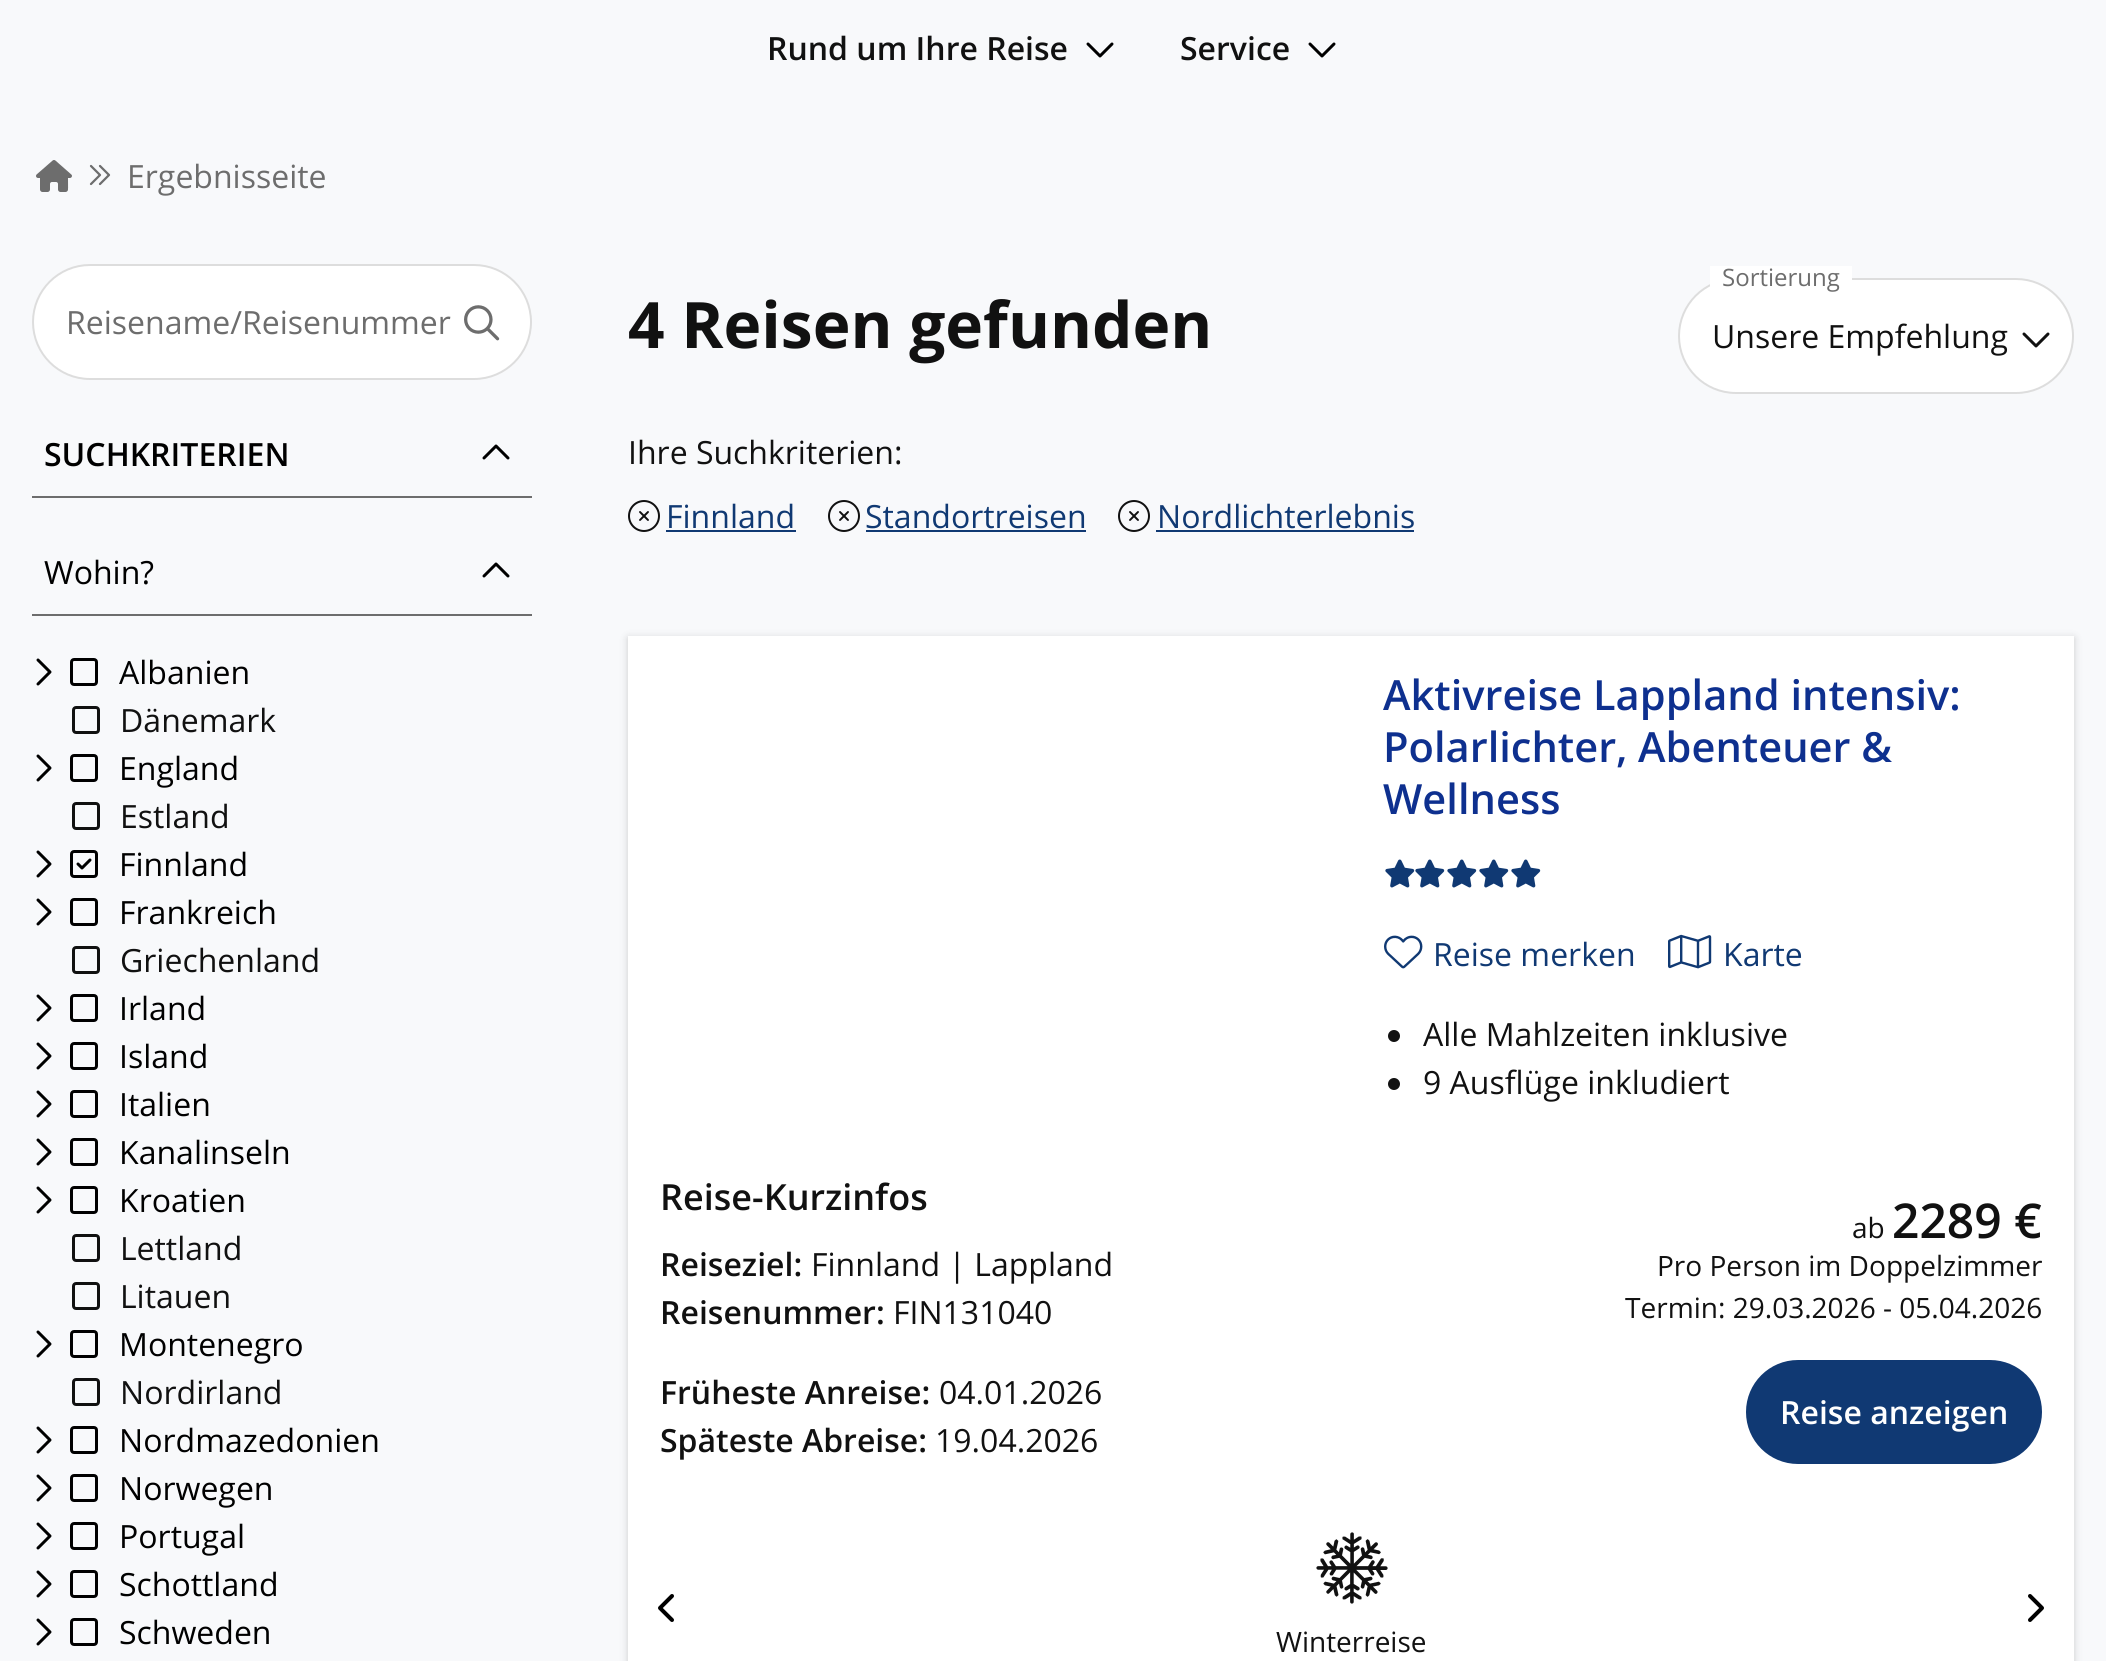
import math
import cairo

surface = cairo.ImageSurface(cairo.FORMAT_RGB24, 2106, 1661)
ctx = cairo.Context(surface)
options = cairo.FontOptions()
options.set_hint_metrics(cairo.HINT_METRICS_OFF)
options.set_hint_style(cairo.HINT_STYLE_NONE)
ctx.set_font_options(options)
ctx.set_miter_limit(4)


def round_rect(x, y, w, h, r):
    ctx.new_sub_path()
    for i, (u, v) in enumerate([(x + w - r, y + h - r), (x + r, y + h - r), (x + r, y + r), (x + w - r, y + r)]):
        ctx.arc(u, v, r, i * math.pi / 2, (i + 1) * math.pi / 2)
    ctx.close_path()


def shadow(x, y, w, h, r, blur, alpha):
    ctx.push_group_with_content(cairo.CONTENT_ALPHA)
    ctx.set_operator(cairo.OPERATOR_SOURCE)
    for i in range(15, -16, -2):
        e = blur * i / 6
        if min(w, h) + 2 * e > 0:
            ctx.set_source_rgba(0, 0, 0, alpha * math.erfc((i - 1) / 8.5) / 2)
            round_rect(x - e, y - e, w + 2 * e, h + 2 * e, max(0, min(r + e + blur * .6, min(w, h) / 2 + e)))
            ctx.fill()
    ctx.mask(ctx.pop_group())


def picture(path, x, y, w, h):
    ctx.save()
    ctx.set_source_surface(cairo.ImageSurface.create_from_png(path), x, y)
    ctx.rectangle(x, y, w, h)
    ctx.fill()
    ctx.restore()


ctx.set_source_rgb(0.969, 0.976, 0.984)
ctx.paint()
ctx.select_font_face("Open Sans SemiBold")
ctx.set_font_size(32)
ctx.set_source_rgb(0.067, 0.067, 0.067)
ctx.move_to(767, 60)
ctx.show_text("Rund um Ihre Reise")
picture("img1.png", 1086, 42, 28, 16)
ctx.move_to(1180, 60)
ctx.show_text("Service")
picture("img1.png", 1308, 42, 28, 16)
picture("img2.png", 36, 160, 36, 32)
picture("img3.png", 89, 164, 22, 22)
ctx.select_font_face("Open Sans")
ctx.set_source_rgb(0.427, 0.427, 0.427)
ctx.move_to(127, 188)
ctx.show_text("Ergebnisseite")
ctx.set_source_rgb(1, 1, 1)
round_rect(33, 265, 498, 114, 57)
ctx.fill_preserve()
ctx.set_source_rgb(0.867, 0.867, 0.867)
ctx.stroke()
ctx.set_source_rgb(0.427, 0.427, 0.427)
ctx.move_to(66, 334)
ctx.show_text("Reisename/Reisenummer")
picture("img4.png", 464, 305, 36, 36)
ctx.rectangle(32, 496, 500, 2)
ctx.fill()
ctx.select_font_face("Open Sans SemiBold")
ctx.set_source_rgb(0, 0, 0)
ctx.move_to(44, 466)
ctx.show_text("SUCHKRITERIEN")
picture("img5.png", 482, 444, 28, 16)
ctx.set_source_rgb(0.427, 0.427, 0.427)
ctx.rectangle(32, 614, 500, 2)
ctx.fill()
ctx.select_font_face("Open Sans")
ctx.set_source_rgb(0, 0, 0)
ctx.move_to(44, 584)
ctx.show_text("Wohin?")
picture("img5.png", 482, 562, 28, 16)
picture("img6.png", 36, 658, 16, 28)
picture("img7.png", 70, 658, 28, 28)
ctx.move_to(119, 684)
ctx.show_text("Albanien")
picture("img8.png", 72, 706, 28, 28)
ctx.set_source_rgb(0.067, 0.067, 0.067)
ctx.move_to(120, 732)
ctx.show_text("Dänemark")
picture("img6.png", 36, 754, 16, 28)
picture("img7.png", 70, 754, 28, 28)
ctx.set_source_rgb(0, 0, 0)
ctx.move_to(119, 780)
ctx.show_text("England")
picture("img8.png", 72, 802, 28, 28)
ctx.set_source_rgb(0.067, 0.067, 0.067)
ctx.move_to(120, 828)
ctx.show_text("Estland")
picture("img6.png", 36, 850, 16, 28)
picture("img9.png", 70, 850, 28, 28)
ctx.set_source_rgb(0, 0, 0)
ctx.move_to(119, 876)
ctx.show_text("Finnland")
picture("img6.png", 36, 898, 16, 28)
picture("img7.png", 70, 898, 28, 28)
ctx.move_to(119, 924)
ctx.show_text("Frankreich")
picture("img8.png", 72, 946, 28, 28)
ctx.set_source_rgb(0.067, 0.067, 0.067)
ctx.move_to(120, 972)
ctx.show_text("Griechenland")
picture("img6.png", 36, 994, 16, 28)
picture("img7.png", 70, 994, 28, 28)
ctx.set_source_rgb(0, 0, 0)
ctx.move_to(119, 1020)
ctx.show_text("Irland")
picture("img6.png", 36, 1042, 16, 28)
picture("img7.png", 70, 1042, 28, 28)
ctx.move_to(119, 1068)
ctx.show_text("Island")
picture("img6.png", 36, 1090, 16, 28)
picture("img7.png", 70, 1090, 28, 28)
ctx.move_to(119, 1116)
ctx.show_text("Italien")
picture("img6.png", 36, 1138, 16, 28)
picture("img7.png", 70, 1138, 28, 28)
ctx.move_to(119, 1164)
ctx.show_text("Kanalinseln")
picture("img6.png", 36, 1186, 16, 28)
picture("img7.png", 70, 1186, 28, 28)
ctx.move_to(119, 1212)
ctx.show_text("Kroatien")
picture("img8.png", 72, 1234, 28, 28)
ctx.set_source_rgb(0.067, 0.067, 0.067)
ctx.move_to(120, 1260)
ctx.show_text("Lettland")
picture("img8.png", 72, 1282, 28, 28)
ctx.move_to(120, 1308)
ctx.show_text("Litauen")
picture("img6.png", 36, 1330, 16, 28)
picture("img7.png", 70, 1330, 28, 28)
ctx.set_source_rgb(0, 0, 0)
ctx.move_to(119, 1356)
ctx.show_text("Montenegro")
picture("img8.png", 72, 1378, 28, 28)
ctx.set_source_rgb(0.067, 0.067, 0.067)
ctx.move_to(120, 1404)
ctx.show_text("Nordirland")
picture("img6.png", 36, 1426, 16, 28)
picture("img7.png", 70, 1426, 28, 28)
ctx.set_source_rgb(0, 0, 0)
ctx.move_to(119, 1452)
ctx.show_text("Nordmazedonien")
picture("img6.png", 36, 1474, 16, 28)
picture("img7.png", 70, 1474, 28, 28)
ctx.move_to(119, 1500)
ctx.show_text("Norwegen")
picture("img6.png", 36, 1522, 16, 28)
picture("img7.png", 70, 1522, 28, 28)
ctx.move_to(119, 1548)
ctx.show_text("Portugal")
picture("img6.png", 36, 1570, 16, 28)
picture("img7.png", 70, 1570, 28, 28)
ctx.move_to(119, 1596)
ctx.show_text("Schottland")
picture("img6.png", 36, 1618, 16, 28)
picture("img7.png", 70, 1618, 28, 28)
ctx.move_to(119, 1644)
ctx.show_text("Schweden")
ctx.select_font_face("Open Sans", cairo.FONT_SLANT_NORMAL, cairo.FONT_WEIGHT_BOLD)
ctx.set_font_size(64)
ctx.set_source_rgb(0.067, 0.067, 0.067)
ctx.move_to(628, 348)
ctx.show_text("4 Reisen gefunden")
ctx.set_source_rgb(1, 1, 1)
round_rect(1679, 279, 394, 114, 57)
ctx.fill_preserve()
ctx.set_source_rgb(0.867, 0.867, 0.867)
ctx.stroke()
ctx.set_source_rgb(1, 1, 1)
ctx.rectangle(1710, 266, 142, 21)
ctx.fill()
ctx.select_font_face("Open Sans")
ctx.set_font_size(24)
ctx.set_source_rgb(0.427, 0.427, 0.427)
ctx.move_to(1722, 286)
ctx.show_text("Sortierung")
ctx.set_font_size(32)
ctx.set_source_rgb(0.067, 0.067, 0.067)
ctx.move_to(1712, 348)
ctx.show_text("Unsere Empfehlung")
picture("img10.png", 2022, 332, 28, 16)
ctx.move_to(628, 464)
ctx.show_text("Ihre Suchkriterien:")
picture("img11.png", 628, 500, 32, 32)
ctx.set_source_rgb(0.063, 0.224, 0.451)
ctx.move_to(666, 528)
ctx.show_text("Finnland")
ctx.rectangle(666, 530, 130, 2)
ctx.fill()
picture("img11.png", 828, 500, 32, 32)
ctx.move_to(865, 528)
ctx.show_text("Standortreisen")
ctx.rectangle(866, 530, 220, 2)
ctx.fill()
picture("img11.png", 1118, 500, 32, 32)
ctx.move_to(1157, 528)
ctx.show_text("Nordlichterlebnis")
ctx.rectangle(1156, 530, 258, 2)
ctx.fill()
ctx.set_source_rgb(0.067, 0.067, 0.067)
shadow(628, 638, 1446, 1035, 0, 4, 0.2)
ctx.set_source_rgb(1, 1, 1)
ctx.rectangle(628, 636, 1446, 1025)
ctx.fill()
ctx.select_font_face("Open Sans SemiBold")
ctx.set_font_size(41.6)
ctx.set_source_rgb(0.055, 0.188, 0.561)
ctx.move_to(1383, 710)
ctx.show_text("Aktivreise Lappland intensiv:")
ctx.move_to(1383, 762)
ctx.show_text("Polarlichter, Abenteuer &")
ctx.move_to(1383, 814)
ctx.show_text("Wellness")
picture("img12.png", 1385, 859, 30, 29)
picture("img12.png", 1415, 859, 30, 29)
picture("img12.png", 1447, 859, 30, 29)
picture("img12.png", 1479, 859, 30, 29)
picture("img12.png", 1511, 859, 30, 29)
picture("img13.png", 1384, 935, 39, 34)
ctx.select_font_face("Open Sans")
ctx.set_font_size(32)
ctx.set_source_rgb(0.063, 0.224, 0.451)
ctx.move_to(1433, 966)
ctx.show_text("Reise merken")
picture("img14.png", 1668, 934, 44, 35)
ctx.move_to(1723, 966)
ctx.show_text("Karte")
ctx.set_source_rgb(0.067, 0.067, 0.067)
ctx.new_path()
ctx.arc(1394, 1036, 6, 0, 2 * math.pi)
ctx.fill()
ctx.move_to(1423, 1046)
ctx.show_text("Alle Mahlzeiten inklusive")
ctx.new_path()
ctx.arc(1394, 1084, 6, 0, 2 * math.pi)
ctx.fill()
ctx.move_to(1423, 1094)
ctx.show_text("9 Ausflüge inkludiert")
ctx.select_font_face("Open Sans SemiBold")
ctx.set_font_size(36)
ctx.move_to(660, 1210)
ctx.show_text("Reise-Kurzinfos")
ctx.set_font_size(32)
ctx.move_to(660, 1276)
ctx.show_text("Reiseziel:")
ctx.select_font_face("Open Sans")
ctx.move_to(811, 1276)
ctx.show_text("Finnland | Lappland")
ctx.select_font_face("Open Sans SemiBold")
ctx.move_to(660, 1324)
ctx.show_text("Reisenummer:")
ctx.select_font_face("Open Sans")
ctx.move_to(893, 1324)
ctx.show_text("FIN131040")
ctx.select_font_face("Open Sans SemiBold")
ctx.move_to(660, 1404)
ctx.show_text("Früheste Anreise:")
ctx.select_font_face("Open Sans")
ctx.move_to(939, 1404)
ctx.show_text("04.01.2026")
ctx.select_font_face("Open Sans SemiBold")
ctx.move_to(660, 1452)
ctx.show_text("Späteste Abreise:")
ctx.select_font_face("Open Sans")
ctx.move_to(935, 1452)
ctx.show_text("19.04.2026")
ctx.set_font_size(28)
ctx.move_to(1852, 1238)
ctx.show_text("ab")
ctx.select_font_face("Open Sans SemiBold")
ctx.set_font_size(48)
ctx.move_to(1892, 1238)
ctx.show_text("2289 €")
ctx.select_font_face("Open Sans")
ctx.set_font_size(28)
ctx.move_to(1657, 1276)
ctx.show_text("Pro Person im Doppelzimmer")
ctx.move_to(1625, 1318)
ctx.show_text("Termin: 29.03.2026 - 05.04.2026")
ctx.set_source_rgb(0.063, 0.224, 0.451)
round_rect(1747, 1361, 294, 102, 51)
ctx.fill_preserve()
ctx.stroke()
ctx.select_font_face("Open Sans SemiBold")
ctx.set_font_size(32)
ctx.set_source_rgb(1, 1, 1)
ctx.move_to(1780, 1424)
ctx.show_text("Reise anzeigen")
picture("img15.png", 658, 1594, 16, 28)
picture("img16.png", 2028, 1594, 16, 28)
picture("img17.png", 1316, 1532, 72, 72)
ctx.select_font_face("Open Sans")
ctx.set_font_size(28)
ctx.set_source_rgb(0.067, 0.067, 0.067)
ctx.move_to(1276, 1652)
ctx.show_text("Winterreise")
surface.write_to_png("page.png")
